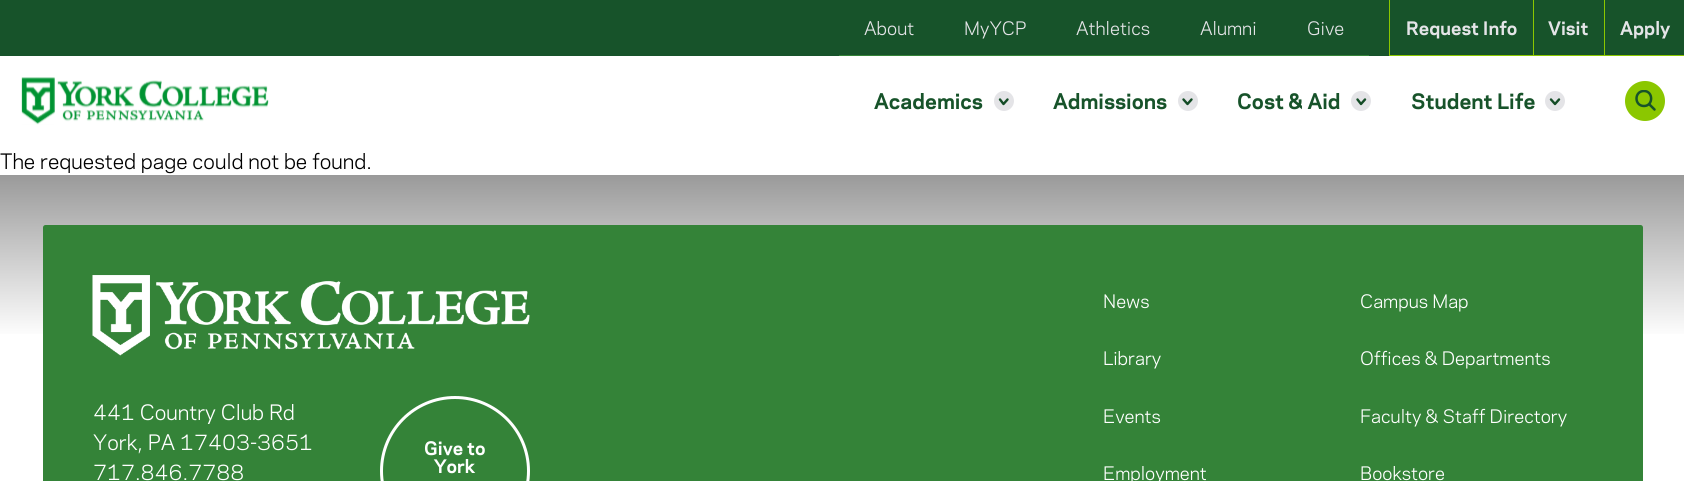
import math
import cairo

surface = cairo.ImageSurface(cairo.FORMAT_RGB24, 1684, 481)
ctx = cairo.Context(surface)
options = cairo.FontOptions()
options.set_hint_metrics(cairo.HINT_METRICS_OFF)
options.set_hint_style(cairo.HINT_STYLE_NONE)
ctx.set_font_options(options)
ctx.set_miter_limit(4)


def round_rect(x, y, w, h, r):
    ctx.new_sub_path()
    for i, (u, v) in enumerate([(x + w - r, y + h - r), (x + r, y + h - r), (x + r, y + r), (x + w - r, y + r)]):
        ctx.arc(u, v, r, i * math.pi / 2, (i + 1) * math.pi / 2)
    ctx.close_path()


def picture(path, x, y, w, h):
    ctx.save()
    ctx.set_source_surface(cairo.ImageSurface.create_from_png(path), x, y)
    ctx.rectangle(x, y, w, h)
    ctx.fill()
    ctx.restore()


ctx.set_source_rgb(1, 1, 1)
ctx.paint()
ctx.set_source_rgb(0.09, 0.325, 0.165)
ctx.rectangle(0, 0, 1684, 56)
ctx.fill()
ctx.select_font_face("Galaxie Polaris")
ctx.set_font_size(17.5)
ctx.set_source_rgb(0.894, 0.894, 0.906)
ctx.move_to(864, 35)
ctx.show_text("About")
ctx.move_to(964, 35)
ctx.show_text("MyYCP")
ctx.move_to(1076, 35)
ctx.show_text("Athletics")
ctx.move_to(1200, 35)
ctx.show_text("Alumni")
ctx.set_source_rgb(0.204, 0.514, 0.22)
ctx.rectangle(839, 55, 530, 1)
ctx.fill()
ctx.set_source_rgb(0.894, 0.894, 0.906)
ctx.move_to(1307, 35)
ctx.show_text("Give")
ctx.set_source_rgb(0.545, 0.78, 0)
ctx.rectangle(1389, 55, 295, 1)
ctx.fill()
ctx.rectangle(1389, 0, 1, 56)
ctx.fill()
ctx.select_font_face("Galaxie Polaris", cairo.FONT_SLANT_NORMAL, cairo.FONT_WEIGHT_BOLD)
ctx.set_source_rgb(0.894, 0.894, 0.906)
ctx.move_to(1406, 35)
ctx.show_text("Request Info")
ctx.set_source_rgb(0.545, 0.78, 0)
ctx.rectangle(1533, 0, 1, 56)
ctx.fill()
ctx.set_source_rgb(0.894, 0.894, 0.906)
ctx.move_to(1548, 35)
ctx.show_text("Visit")
ctx.set_source_rgb(0.545, 0.78, 0)
ctx.rectangle(1604, 0, 1, 56)
ctx.fill()
ctx.set_source_rgb(0.894, 0.894, 0.906)
ctx.move_to(1620, 35)
ctx.show_text("Apply")
picture("img1.png", 21, 77, 248, 48)
ctx.set_font_size(20)
ctx.set_source_rgb(0.09, 0.325, 0.165)
ctx.move_to(874, 109)
ctx.show_text("Academics")
ctx.set_source_rgb(0.894, 0.894, 0.906)
ctx.new_path()
ctx.arc(1004, 101, 10, 0, 2 * math.pi)
ctx.fill()
ctx.new_path()
ctx.move_to(1000, 99.5)
ctx.line_to(1003.5, 104)
ctx.line_to(1007.5, 99.5)
ctx.set_source_rgb(0.082, 0.298, 0.149)
ctx.set_line_width(2.4)
ctx.set_line_cap(cairo.LINE_CAP_ROUND)
ctx.set_line_join(cairo.LINE_JOIN_ROUND)
ctx.stroke()
ctx.set_source_rgb(0.09, 0.325, 0.165)
ctx.move_to(1053, 109)
ctx.show_text("Admissions")
ctx.set_source_rgb(0.894, 0.894, 0.906)
ctx.new_path()
ctx.arc(1188, 101, 10, 0, 2 * math.pi)
ctx.fill()
ctx.new_path()
ctx.move_to(1183.5, 99.5)
ctx.line_to(1187.5, 104)
ctx.line_to(1191.5, 99.5)
ctx.set_source_rgb(0.082, 0.298, 0.149)
ctx.stroke()
ctx.set_source_rgb(0.09, 0.325, 0.165)
ctx.move_to(1237, 109)
ctx.show_text("Cost & Aid")
ctx.set_source_rgb(0.894, 0.894, 0.906)
ctx.new_path()
ctx.arc(1361, 101, 10, 0, 2 * math.pi)
ctx.fill()
ctx.new_path()
ctx.move_to(1357.5, 99.5)
ctx.line_to(1361, 104)
ctx.line_to(1365, 99.5)
ctx.set_source_rgb(0.082, 0.298, 0.149)
ctx.stroke()
ctx.set_source_rgb(0.09, 0.325, 0.165)
ctx.move_to(1411, 109)
ctx.show_text("Student Life")
ctx.set_source_rgb(0.894, 0.894, 0.906)
ctx.new_path()
ctx.arc(1555, 101, 10, 0, 2 * math.pi)
ctx.fill()
ctx.new_path()
ctx.move_to(1551, 99.5)
ctx.line_to(1555, 104)
ctx.line_to(1559, 99.5)
ctx.set_source_rgb(0.082, 0.298, 0.149)
ctx.stroke()
ctx.set_source_rgb(0.545, 0.78, 0)
ctx.arc(1645, 101, 20, 0, 2 * math.pi)
ctx.fill()
ctx.save()
ctx.rectangle(1635, 90, 21, 21)
ctx.clip()
ctx.new_path()
ctx.move_to(1644, 106)
ctx.curve_to(1653.5, 106, 1653.5, 91, 1644, 91)
ctx.curve_to(1634, 91, 1634, 106, 1644, 106)
ctx.close_path()
ctx.set_source_rgb(0.09, 0.325, 0.165)
ctx.set_line_width(2.5)
ctx.stroke()
ctx.restore()
ctx.new_path()
ctx.move_to(1654.5, 109.5)
ctx.line_to(1649.5, 104.5)
ctx.set_source_rgb(0.09, 0.325, 0.165)
ctx.set_line_width(2.5)
ctx.stroke()
ctx.select_font_face("Galaxie Polaris")
ctx.set_source_rgb(0, 0, 0)
ctx.move_to(0, 169)
ctx.show_text("The requested page could not be found.")
gradient = cairo.LinearGradient(843, 175, 843, 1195)
gradient.add_color_stop_rgba(0, 0.604, 0.604, 0.604, 1)
gradient.add_color_stop_rgba(0.16, 1, 1, 1, 1)
ctx.set_source(gradient)
ctx.rectangle(0, 175, 1684, 159)
ctx.fill()
ctx.set_source_rgb(0.204, 0.514, 0.22)
round_rect(43, 225, 1600, 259, 2.5)
ctx.fill()
picture("img2.png", 92, 275, 438, 81)
ctx.set_source_rgb(1, 1, 1)
ctx.move_to(93, 420)
ctx.show_text("441 Country Club Rd")
ctx.move_to(93, 450)
ctx.show_text("York, PA 17403-3651")
ctx.move_to(93, 480)
ctx.show_text("717.846.7788")
ctx.new_path()
ctx.arc(455, 471, 73.5, 0, 2 * math.pi)
ctx.set_line_width(3)
ctx.set_line_cap(cairo.LINE_CAP_BUTT)
ctx.set_line_join(cairo.LINE_JOIN_MITER)
ctx.stroke()
ctx.select_font_face("Galaxie Polaris", cairo.FONT_SLANT_NORMAL, cairo.FONT_WEIGHT_BOLD)
ctx.set_font_size(17.5)
ctx.move_to(424, 455)
ctx.show_text("Give to")
ctx.move_to(434, 473)
ctx.show_text("York")
ctx.select_font_face("Galaxie Polaris")
ctx.move_to(1103, 308)
ctx.show_text("News")
ctx.move_to(1360, 308)
ctx.show_text("Campus Map")
ctx.move_to(1103, 365)
ctx.show_text("Library")
ctx.move_to(1360, 365)
ctx.show_text("Offices & Departments")
ctx.move_to(1103, 423)
ctx.show_text("Events")
ctx.move_to(1360, 423)
ctx.show_text("Faculty & Staff Directory")
ctx.move_to(1103, 480)
ctx.show_text("Employment")
ctx.move_to(1360, 480)
ctx.show_text("Bookstore")
surface.write_to_png("page.png")
